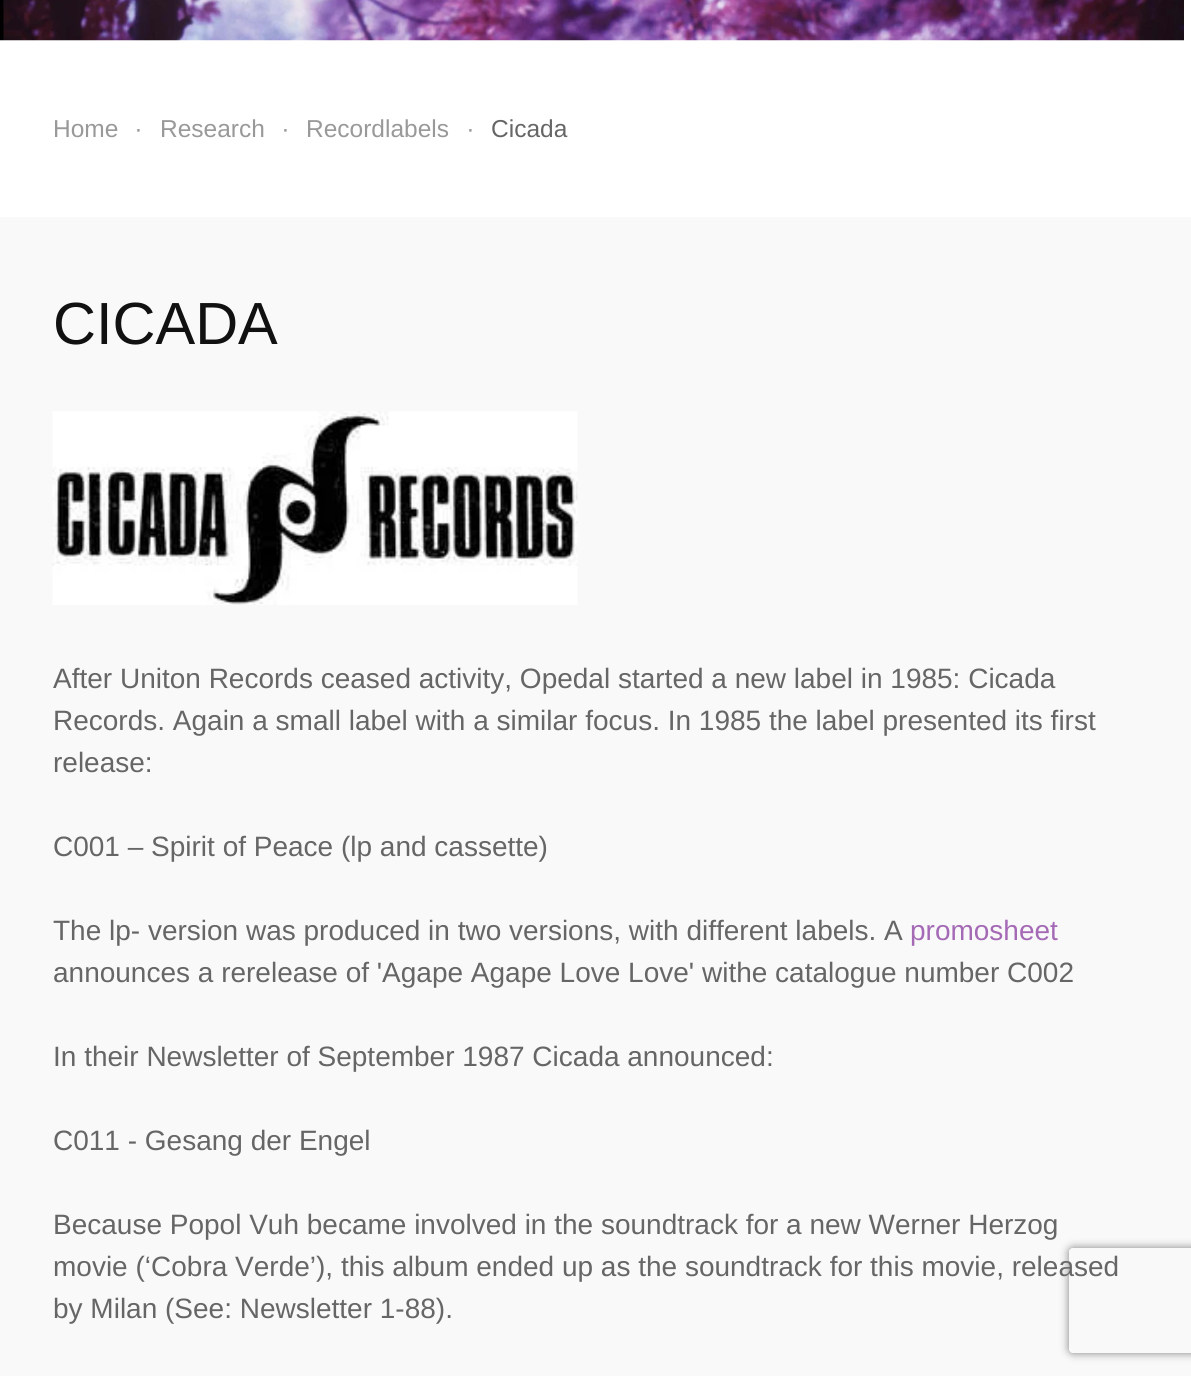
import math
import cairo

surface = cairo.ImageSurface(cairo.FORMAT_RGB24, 1191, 1376)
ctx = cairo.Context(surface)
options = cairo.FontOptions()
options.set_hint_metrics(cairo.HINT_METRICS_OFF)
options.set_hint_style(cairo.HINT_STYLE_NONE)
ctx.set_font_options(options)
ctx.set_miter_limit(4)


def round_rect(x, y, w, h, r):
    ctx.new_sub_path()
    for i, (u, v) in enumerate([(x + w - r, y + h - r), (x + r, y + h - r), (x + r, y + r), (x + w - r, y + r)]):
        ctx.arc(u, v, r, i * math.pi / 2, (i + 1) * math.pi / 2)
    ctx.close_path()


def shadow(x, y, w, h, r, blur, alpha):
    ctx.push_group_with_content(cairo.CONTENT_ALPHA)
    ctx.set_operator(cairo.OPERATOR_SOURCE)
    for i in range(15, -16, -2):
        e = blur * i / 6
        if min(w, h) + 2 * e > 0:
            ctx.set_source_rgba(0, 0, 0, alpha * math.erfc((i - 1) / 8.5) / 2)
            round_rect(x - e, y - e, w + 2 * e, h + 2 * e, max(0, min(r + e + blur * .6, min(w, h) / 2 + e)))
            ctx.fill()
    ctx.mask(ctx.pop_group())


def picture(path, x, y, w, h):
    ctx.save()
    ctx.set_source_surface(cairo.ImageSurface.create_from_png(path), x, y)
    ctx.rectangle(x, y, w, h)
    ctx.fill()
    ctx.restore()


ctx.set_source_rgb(1, 1, 1)
ctx.paint()
picture("img1.png", 0, 0, 1184, 41)
ctx.select_font_face("Liberation Sans")
ctx.set_font_size(24.5)
ctx.set_source_rgb(0.6, 0.6, 0.6)
ctx.move_to(53, 137)
ctx.show_text("Home")
ctx.move_to(135, 137)
ctx.show_text("∙")
ctx.move_to(160, 137)
ctx.show_text("Research")
ctx.move_to(282, 137)
ctx.show_text("∙")
ctx.move_to(306, 137)
ctx.show_text("Recordlabels")
ctx.move_to(467, 137)
ctx.show_text("∙")
ctx.set_source_rgb(0.4, 0.4, 0.4)
ctx.move_to(491, 137)
ctx.show_text("Cicada")
ctx.set_source_rgb(0.973, 0.973, 0.973)
ctx.rectangle(0, 217, 1191, 1159)
ctx.fill()
ctx.set_font_size(59.5)
ctx.set_source_rgb(0.067, 0.067, 0.067)
ctx.move_to(53, 344)
ctx.show_text("CICADA")
picture("img2.png", 52, 411, 526, 194)
ctx.set_font_size(28)
ctx.set_source_rgb(0.4, 0.4, 0.4)
ctx.move_to(53, 688)
ctx.show_text("After Uniton Records ceased activity, Opedal started a new label in 1985: Cicada")
ctx.move_to(53, 730)
ctx.show_text("Records. Again a small label with a similar focus. In 1985 the label presented its first")
ctx.move_to(53, 772)
ctx.show_text("release:")
ctx.move_to(53, 856)
ctx.show_text("C001 – Spirit of Peace (lp and cassette)")
ctx.move_to(53, 940)
ctx.show_text("The lp- version was produced in two versions, with different labels. A")
ctx.set_source_rgb(0.643, 0.416, 0.71)
ctx.move_to(910, 940)
ctx.show_text("promosheet")
ctx.set_source_rgb(0.4, 0.4, 0.4)
ctx.move_to(53, 982)
ctx.show_text("announces a rerelease of 'Agape Agape Love Love' withe catalogue number C002")
ctx.move_to(53, 1066)
ctx.show_text("In their Newsletter of September 1987 Cicada announced:")
ctx.move_to(53, 1150)
ctx.show_text("C011 - Gesang der Engel")
ctx.move_to(53, 1234)
ctx.show_text("Because Popol Vuh became involved in the soundtrack for a new Werner Herzog")
ctx.move_to(53, 1276)
ctx.show_text("movie (‘Cobra Verde’), this album ended up as the soundtrack for this movie, released")
ctx.move_to(53, 1318)
ctx.show_text("by Milan (See: Newsletter 1-88).")
ctx.save()
ctx.set_fill_rule(cairo.FILL_RULE_EVEN_ODD)
ctx.new_path()
ctx.move_to(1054, 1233)
ctx.line_to(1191, 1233)
ctx.line_to(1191, 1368)
ctx.line_to(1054, 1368)
ctx.close_path()
ctx.move_to(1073, 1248)
ctx.line_to(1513, 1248)
ctx.curve_to(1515, 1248, 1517, 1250, 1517, 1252)
ctx.line_to(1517, 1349)
ctx.curve_to(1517, 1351, 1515, 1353, 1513, 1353)
ctx.line_to(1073, 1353)
ctx.curve_to(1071, 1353, 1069, 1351, 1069, 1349)
ctx.line_to(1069, 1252)
ctx.curve_to(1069, 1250, 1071, 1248, 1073, 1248)
ctx.close_path()
ctx.clip()
ctx.set_source_rgb(0.502, 0.502, 0.502)
shadow(1069, 1248, 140, 105, 4, 4.5, 1)
ctx.restore()
surface.write_to_png("page.png")
